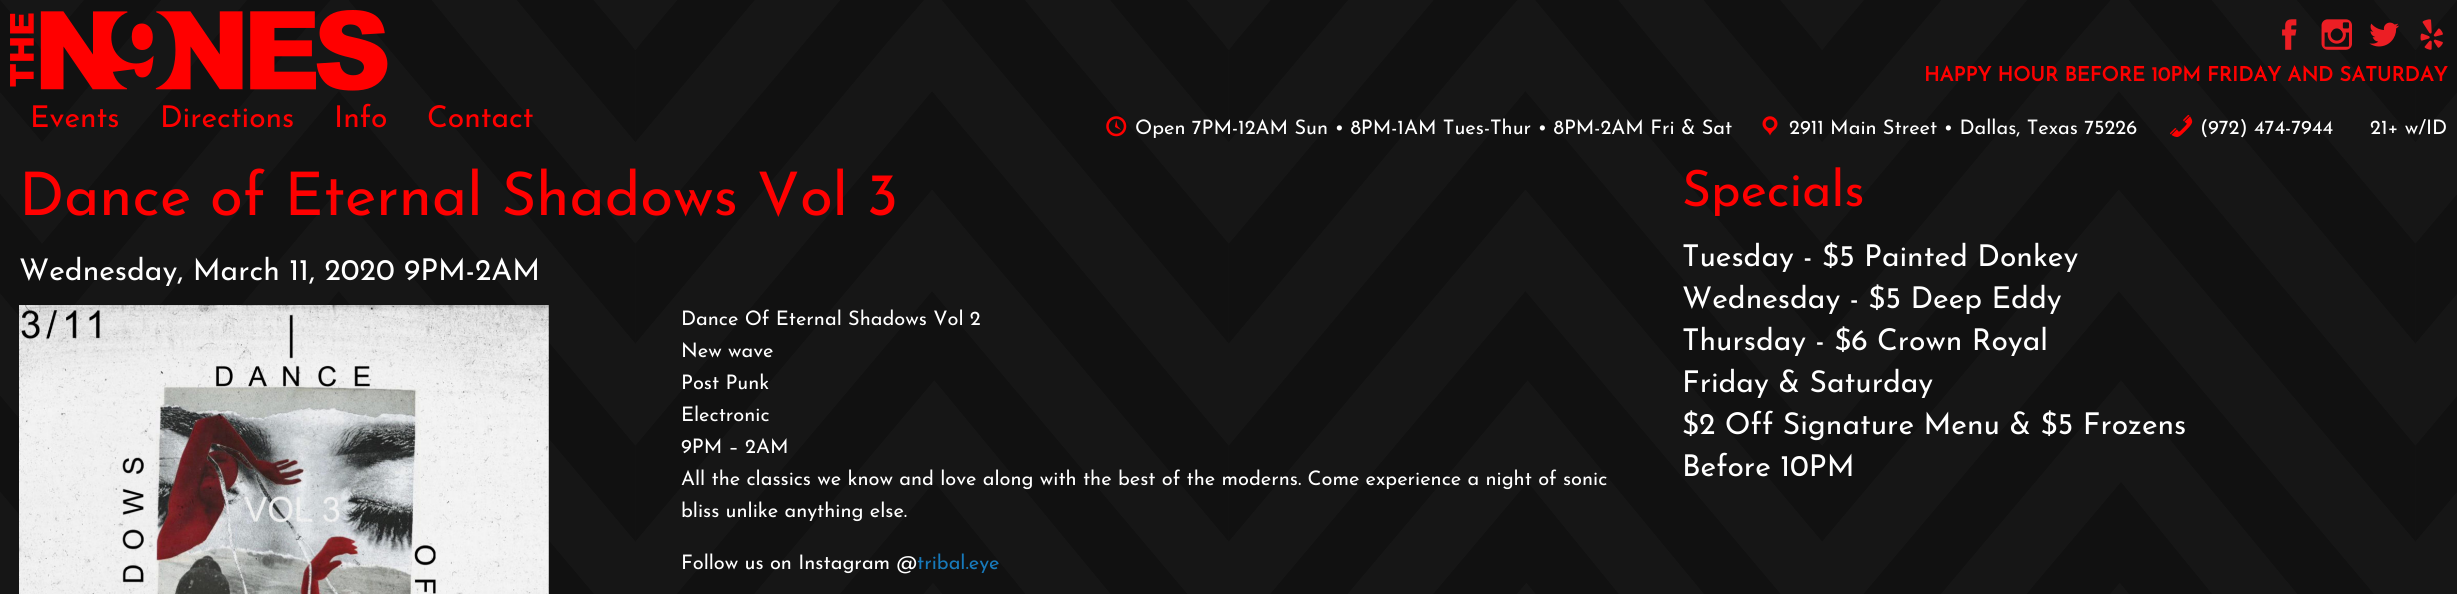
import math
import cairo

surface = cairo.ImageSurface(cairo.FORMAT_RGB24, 2457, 594)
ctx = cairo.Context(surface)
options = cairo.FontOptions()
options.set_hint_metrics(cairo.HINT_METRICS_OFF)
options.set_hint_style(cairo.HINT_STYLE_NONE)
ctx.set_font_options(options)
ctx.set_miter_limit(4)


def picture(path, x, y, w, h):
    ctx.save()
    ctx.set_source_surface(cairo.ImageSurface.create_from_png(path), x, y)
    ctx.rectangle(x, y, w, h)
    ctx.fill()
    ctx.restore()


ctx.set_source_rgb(1, 1, 1)
ctx.paint()
picture("img1.png", 0, 0, 2457, 594)
picture("img2.png", 10, 10, 378, 81)
ctx.select_font_face("Josefin Sans Thin")
ctx.set_font_size(30)
ctx.set_source_rgb(1, 0, 0)
ctx.move_to(30, 127)
ctx.show_text("Events")
ctx.move_to(160, 127)
ctx.show_text("Directions")
ctx.move_to(334, 127)
ctx.show_text("Info")
ctx.move_to(427, 127)
ctx.show_text("Contact")
picture("img3.png", 2282, 19, 15, 31)
picture("img4.png", 2321, 19, 31, 31)
picture("img5.png", 2369, 22, 30, 25)
picture("img6.png", 2420, 19, 23, 31)
ctx.select_font_face("Josefin Sans", cairo.FONT_SLANT_NORMAL, cairo.FONT_WEIGHT_BOLD)
ctx.set_font_size(20)
ctx.move_to(1924, 81)
ctx.show_text("HAPPY HOUR BEFORE 10PM FRIDAY AND SATURDAY")
picture("img7.png", 1106, 116, 21, 21)
ctx.select_font_face("Josefin Sans Thin")
ctx.set_source_rgb(1, 1, 1)
ctx.move_to(1135, 134)
ctx.show_text("Open 7PM-12AM Sun • 8PM-1AM Tues-Thur • 8PM-2AM Fri & Sat")
picture("img8.png", 1762, 116, 16, 20)
ctx.move_to(1789, 134)
ctx.show_text("2911 Main Street • Dallas, Texas 75226")
picture("img9.png", 2170, 114, 23, 23)
ctx.move_to(2200, 134)
ctx.show_text("(972) 474-7944")
ctx.move_to(2370, 134)
ctx.show_text("21+ w/ID")
ctx.set_font_size(60)
ctx.set_source_rgb(1, 0, 0)
ctx.move_to(19, 215)
ctx.show_text("Dance of Eternal Shadows Vol 3")
ctx.set_font_size(30)
ctx.set_source_rgb(1, 1, 1)
ctx.move_to(19, 280)
ctx.show_text("Wednesday, March 11, 2020 9PM-2AM")
picture("img10.png", 19, 305, 530, 289)
ctx.set_font_size(20)
ctx.move_to(681, 325)
ctx.show_text("Dance Of Eternal Shadows Vol 2")
ctx.move_to(681, 357)
ctx.show_text("New wave")
ctx.move_to(681, 389)
ctx.show_text("Post Punk")
ctx.move_to(681, 421)
ctx.show_text("Electronic")
ctx.move_to(681, 453)
ctx.show_text("9PM – 2AM")
ctx.move_to(681, 485)
ctx.show_text("All the classics we know and love along with the best of the moderns. Come experience a night of sonic")
ctx.move_to(681, 517)
ctx.show_text("bliss unlike anything else.")
ctx.move_to(681, 569)
ctx.show_text("Follow us on Instagram @")
ctx.set_source_rgb(0.09, 0.475, 0.729)
ctx.move_to(917, 569)
ctx.show_text("tribal.eye")
ctx.set_font_size(50)
ctx.set_source_rgb(1, 0, 0)
ctx.move_to(1682, 206)
ctx.show_text("Specials")
ctx.set_font_size(30)
ctx.set_source_rgb(1, 1, 1)
ctx.move_to(1682, 266)
ctx.show_text("Tuesday - $5 Painted Donkey")
ctx.move_to(1682, 308)
ctx.show_text("Wednesday - $5 Deep Eddy")
ctx.move_to(1682, 350)
ctx.show_text("Thursday - $6 Crown Royal")
ctx.move_to(1682, 392)
ctx.show_text("Friday & Saturday")
ctx.move_to(1682, 434)
ctx.show_text("$2 Off Signature Menu & $5 Frozens")
ctx.move_to(1682, 476)
ctx.show_text("Before 10PM")
surface.write_to_png("page.png")
